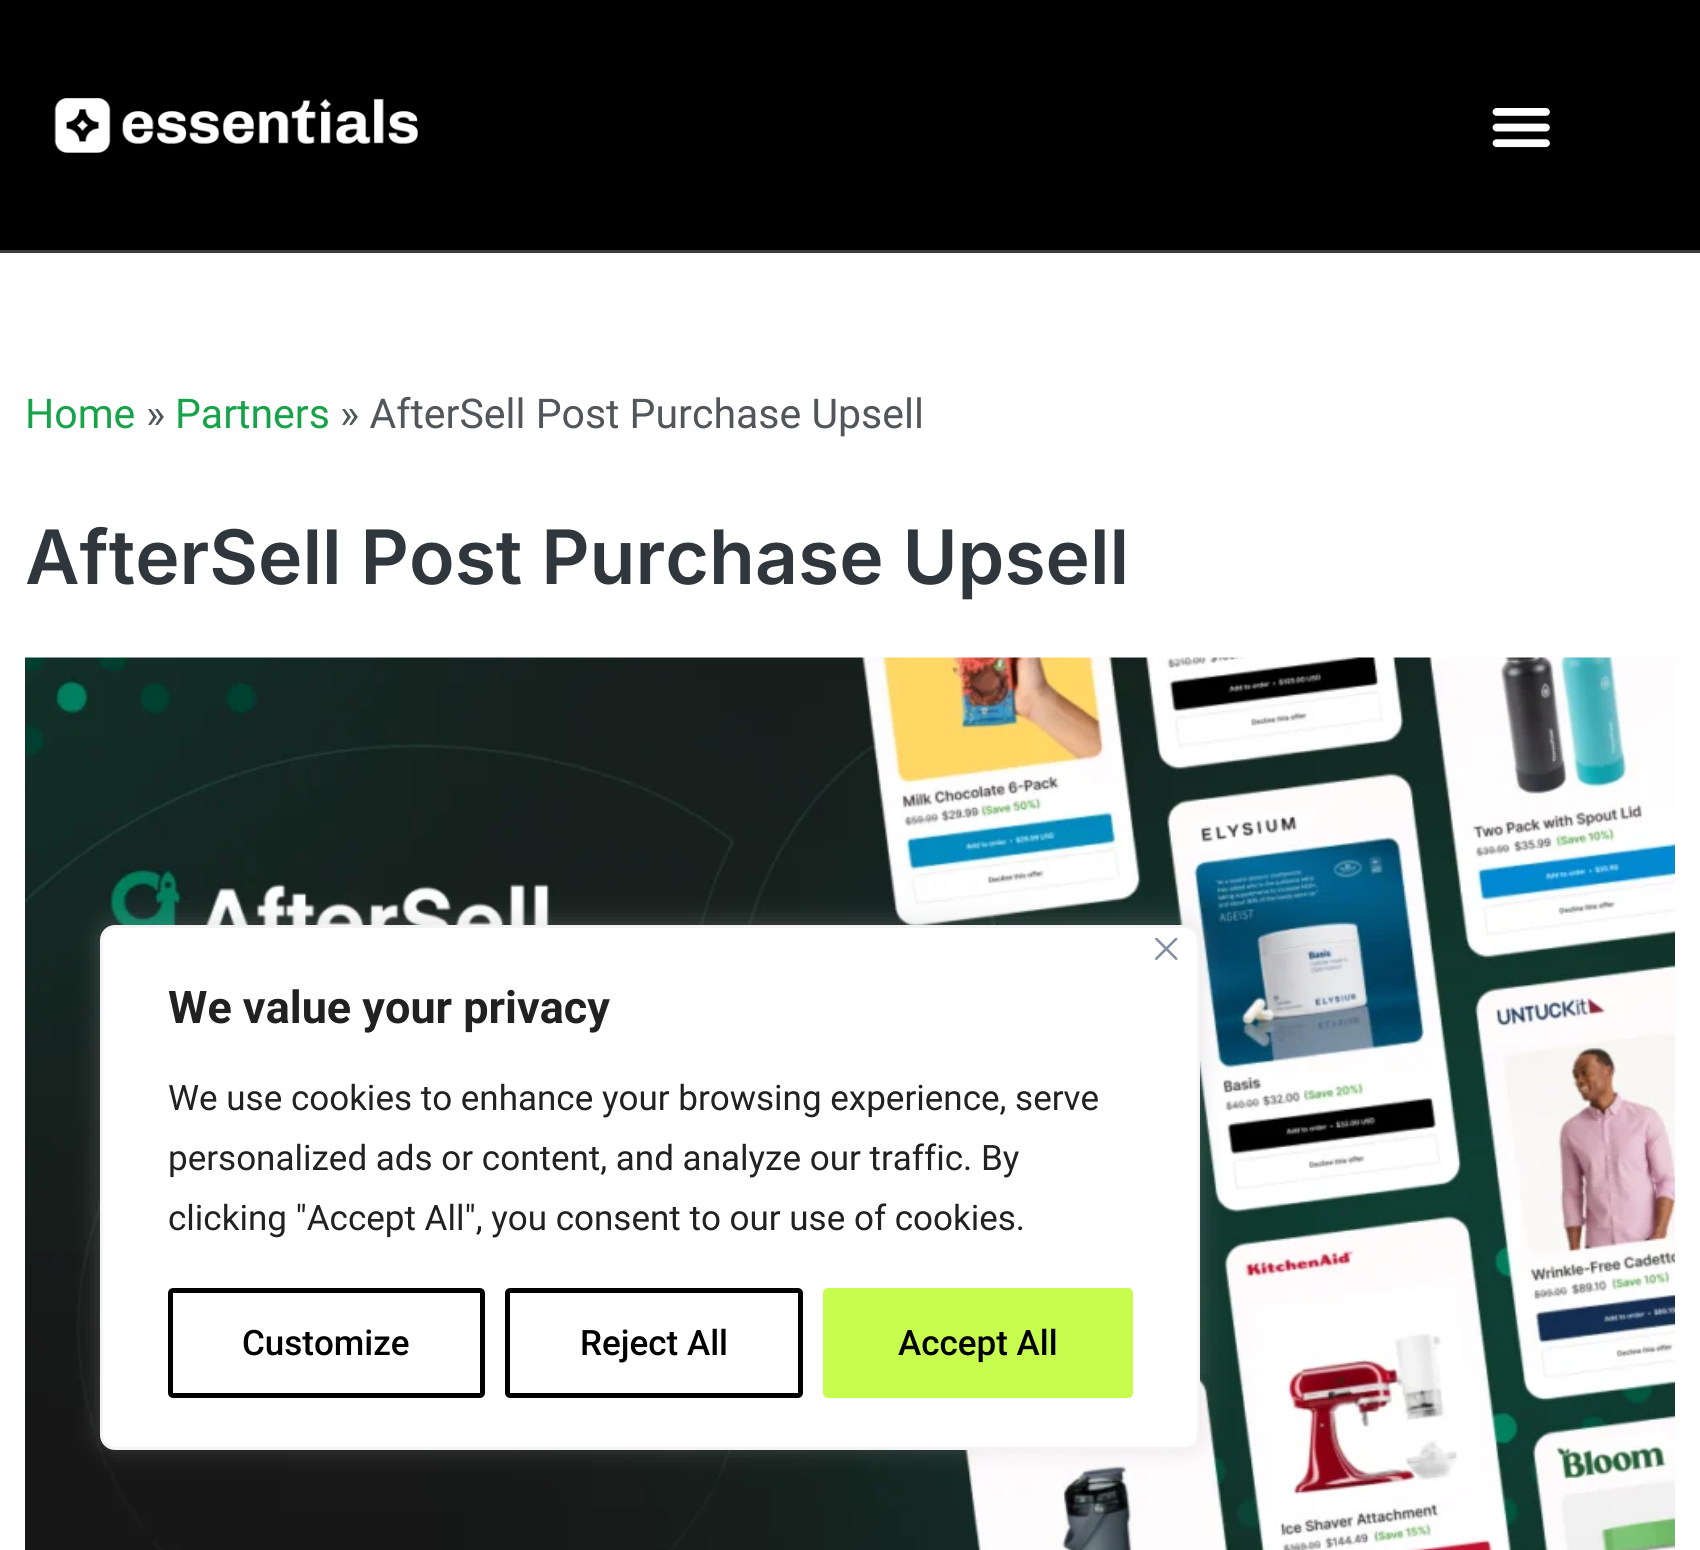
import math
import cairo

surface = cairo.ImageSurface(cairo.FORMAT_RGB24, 1700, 1550)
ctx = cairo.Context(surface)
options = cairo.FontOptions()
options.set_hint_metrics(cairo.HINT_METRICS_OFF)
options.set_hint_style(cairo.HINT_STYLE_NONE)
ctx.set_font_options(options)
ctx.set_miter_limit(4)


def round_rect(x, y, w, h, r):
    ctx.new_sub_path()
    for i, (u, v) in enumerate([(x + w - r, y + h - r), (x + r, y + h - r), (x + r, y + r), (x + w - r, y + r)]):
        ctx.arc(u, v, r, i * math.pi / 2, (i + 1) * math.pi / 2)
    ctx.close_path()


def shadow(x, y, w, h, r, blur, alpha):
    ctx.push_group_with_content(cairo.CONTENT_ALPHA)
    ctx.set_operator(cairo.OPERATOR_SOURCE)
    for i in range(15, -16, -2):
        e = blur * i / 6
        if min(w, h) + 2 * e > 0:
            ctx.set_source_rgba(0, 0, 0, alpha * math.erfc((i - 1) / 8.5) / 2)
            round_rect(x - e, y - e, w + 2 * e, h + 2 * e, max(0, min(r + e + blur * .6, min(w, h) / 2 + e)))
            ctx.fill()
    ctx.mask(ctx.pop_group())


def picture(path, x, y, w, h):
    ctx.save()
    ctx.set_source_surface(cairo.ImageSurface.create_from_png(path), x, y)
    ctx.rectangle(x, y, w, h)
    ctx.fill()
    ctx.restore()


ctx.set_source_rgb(1, 1, 1)
ctx.paint()
ctx.set_source_rgb(0, 0, 0)
ctx.rectangle(0, 0, 1700, 250)
ctx.fill()
ctx.set_source_rgb(0.243, 0.243, 0.243)
ctx.rectangle(0, 250, 1700, 3)
ctx.fill()
picture("img1.png", 54, 98, 364, 55)
picture("img2.png", 1492, 108, 58, 40)
ctx.select_font_face("Roboto")
ctx.set_font_size(41)
ctx.set_source_rgb(0.086, 0.639, 0.29)
ctx.move_to(25, 428)
ctx.show_text("Home")
ctx.set_source_rgb(0.322, 0.337, 0.353)
ctx.move_to(146, 428)
ctx.show_text("»")
ctx.set_source_rgb(0.086, 0.639, 0.29)
ctx.move_to(175, 428)
ctx.show_text("Partners")
ctx.set_source_rgb(0.322, 0.337, 0.353)
ctx.move_to(340, 428)
ctx.show_text("» AfterSell Post Purchase Upsell")
ctx.select_font_face("Inter SemiBold")
ctx.set_font_size(75)
ctx.set_source_rgb(0.184, 0.216, 0.239)
ctx.move_to(25, 584)
ctx.show_text("AfterSell Post Purchase Upsell")
picture("img3.png", 25, 657, 1650, 893)
ctx.set_source_rgb(0.675, 0.671, 0.671)
shadow(100, 923, 1100, 525, 15, 12.5, 0.3)
ctx.set_source_rgb(1, 1, 1)
round_rect(101.5, 926.5, 1097, 522, 13.5)
ctx.fill_preserve()
ctx.set_source_rgb(0.957, 0.957, 0.957)
ctx.set_line_width(3)
ctx.stroke()
picture("img4.png", 1155, 938, 23, 22)
ctx.select_font_face("Roboto", cairo.FONT_SLANT_NORMAL, cairo.FONT_WEIGHT_BOLD)
ctx.set_font_size(45)
ctx.set_source_rgb(0.129, 0.129, 0.129)
ctx.move_to(168, 1023)
ctx.show_text("We value your privacy")
ctx.select_font_face("Roboto")
ctx.set_font_size(35)
ctx.move_to(168, 1110)
ctx.show_text("We use cookies to enhance your browsing experience, serve")
ctx.move_to(168, 1170)
ctx.show_text("personalized ads or content, and analyze our traffic. By")
ctx.move_to(168, 1230)
ctx.show_text("clicking \"Accept All\", you consent to our use of cookies.")
round_rect(170.5, 1290.5, 312, 105, 2.5)
ctx.set_source_rgb(0, 0, 0)
ctx.set_line_width(5)
ctx.stroke()
ctx.select_font_face("Roboto Medium")
ctx.move_to(242, 1355)
ctx.show_text("Customize")
round_rect(507.5, 1290.5, 293, 105, 2.5)
ctx.stroke()
ctx.move_to(580, 1355)
ctx.show_text("Reject All")
ctx.set_source_rgb(0.78, 0.992, 0.31)
round_rect(825.5, 1290.5, 305, 105, 2.5)
ctx.fill_preserve()
ctx.stroke()
ctx.set_source_rgb(0, 0, 0)
ctx.move_to(898, 1355)
ctx.show_text("Accept All")
surface.write_to_png("page.png")
